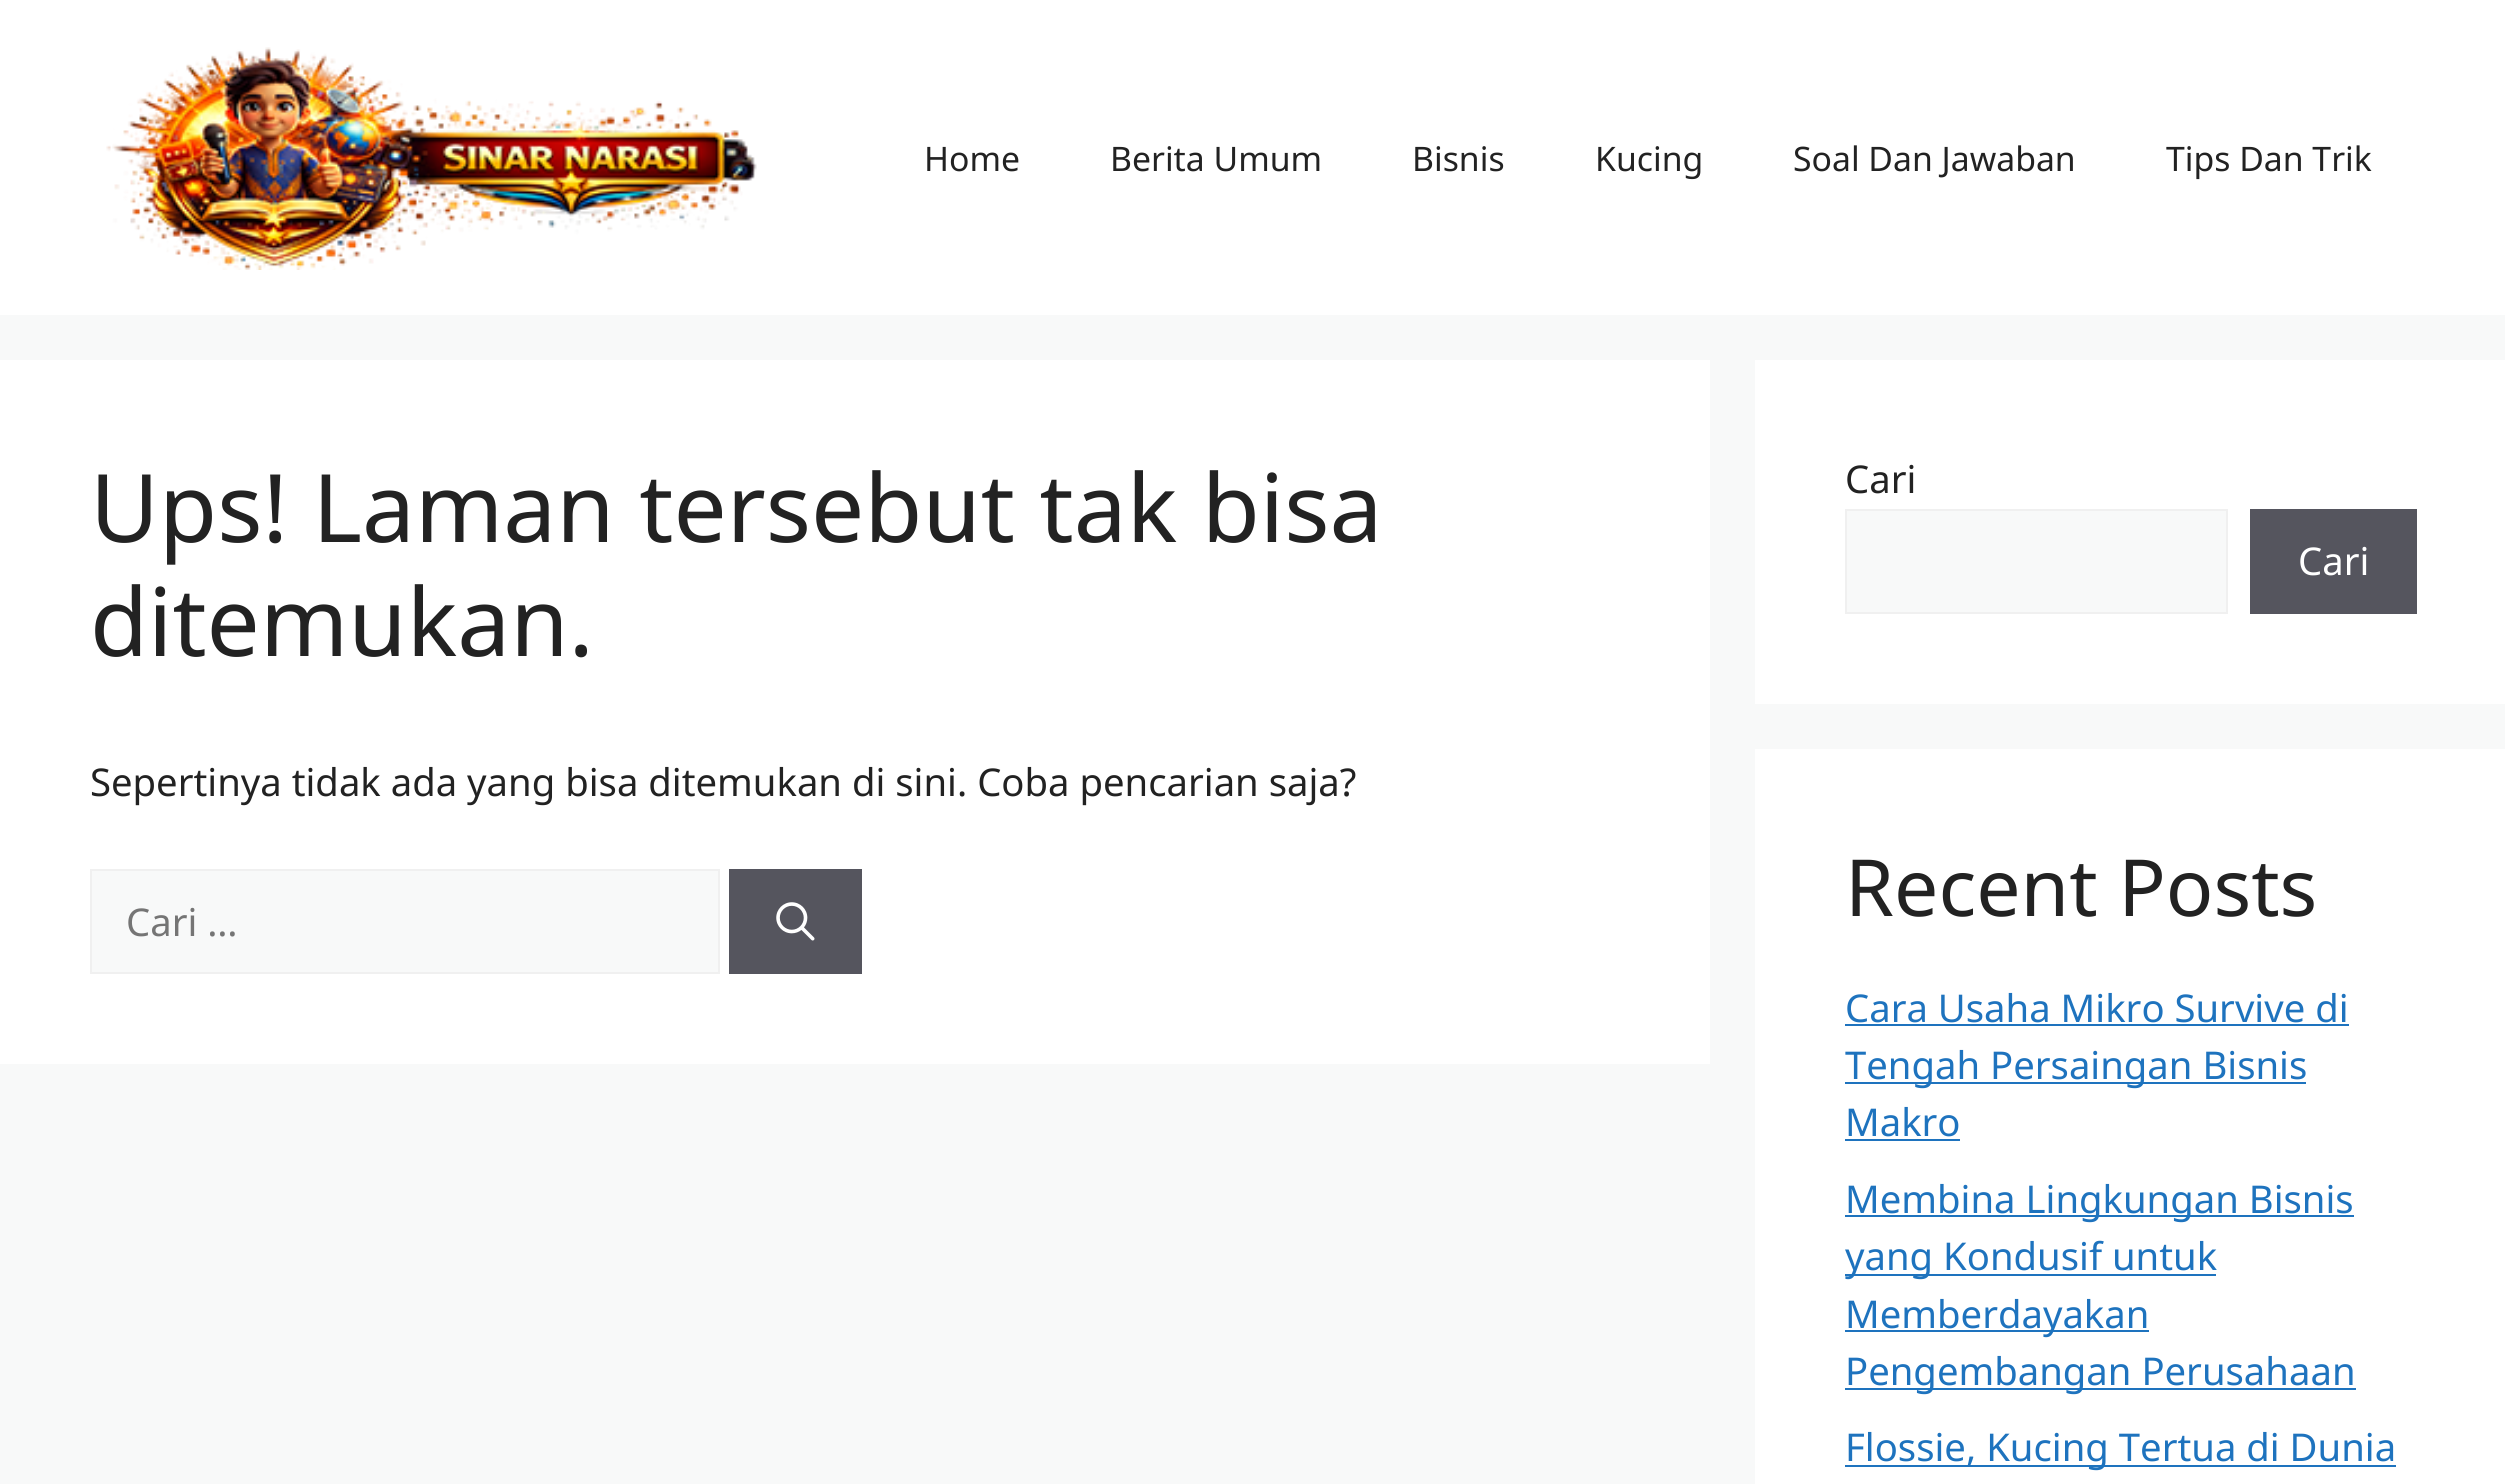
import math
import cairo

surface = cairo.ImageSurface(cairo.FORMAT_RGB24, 2505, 1484)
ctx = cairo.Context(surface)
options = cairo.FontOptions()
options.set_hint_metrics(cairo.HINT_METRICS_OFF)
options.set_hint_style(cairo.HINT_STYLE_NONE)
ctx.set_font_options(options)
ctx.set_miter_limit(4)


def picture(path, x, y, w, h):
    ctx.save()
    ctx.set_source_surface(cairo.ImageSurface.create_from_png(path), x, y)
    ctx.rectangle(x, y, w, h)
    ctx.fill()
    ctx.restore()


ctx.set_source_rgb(0.969, 0.973, 0.976)
ctx.paint()
ctx.set_source_rgb(1, 1, 1)
ctx.rectangle(0, 0, 2505, 315)
ctx.fill()
picture("img1.png", 106, 47, 651, 223)
ctx.select_font_face("Noto Sans")
ctx.set_font_size(33.75)
ctx.set_source_rgb(0.133, 0.133, 0.133)
ctx.move_to(924, 171)
ctx.show_text("Home")
ctx.move_to(1110, 171)
ctx.show_text("Berita Umum")
ctx.move_to(1412, 171)
ctx.show_text("Bisnis")
ctx.move_to(1595, 171)
ctx.show_text("Kucing")
ctx.move_to(1793, 171)
ctx.show_text("Soal Dan Jawaban")
ctx.move_to(2166, 171)
ctx.show_text("Tips Dan Trik")
ctx.set_source_rgb(1, 1, 1)
ctx.rectangle(0, 360, 1710, 704)
ctx.fill()
ctx.set_font_size(94.5)
ctx.set_source_rgb(0.133, 0.133, 0.133)
ctx.move_to(90, 542)
ctx.show_text("Ups! Laman tersebut tak bisa")
ctx.move_to(90, 656)
ctx.show_text("ditemukan.")
ctx.set_font_size(38.25)
ctx.move_to(90, 796)
ctx.show_text("Sepertinya tidak ada yang bisa ditemukan di sini. Coba pencarian saja?")
ctx.set_source_rgb(0.969, 0.973, 0.976)
ctx.rectangle(91, 870, 628, 103)
ctx.fill_preserve()
ctx.set_source_rgb(0.941, 0.941, 0.941)
ctx.stroke()
ctx.set_source_rgb(0.459, 0.459, 0.459)
ctx.move_to(126, 936)
ctx.show_text("Cari …")
ctx.set_source_rgb(0.333, 0.333, 0.369)
ctx.rectangle(729, 869, 133, 105)
ctx.fill()
picture("img2.png", 776, 902, 39, 39)
ctx.set_source_rgb(1, 1, 1)
ctx.rectangle(1755, 360, 750, 344)
ctx.fill()
ctx.set_source_rgb(0.133, 0.133, 0.133)
ctx.move_to(1845, 493)
ctx.show_text("Cari")
ctx.set_source_rgb(0.969, 0.973, 0.976)
ctx.rectangle(1846, 510, 381, 103)
ctx.fill_preserve()
ctx.set_source_rgb(0.941, 0.941, 0.941)
ctx.stroke()
ctx.set_source_rgb(0.333, 0.333, 0.369)
ctx.rectangle(2250, 509, 167, 105)
ctx.fill()
ctx.set_source_rgb(1, 1, 1)
ctx.move_to(2298, 575)
ctx.show_text("Cari")
ctx.rectangle(1755, 749, 750, 735)
ctx.fill()
ctx.set_font_size(78.75)
ctx.set_source_rgb(0.133, 0.133, 0.133)
ctx.move_to(1845, 916)
ctx.show_text("Recent Posts")
ctx.set_font_size(38.25)
ctx.set_source_rgb(0.118, 0.451, 0.745)
ctx.move_to(1845, 1022)
ctx.show_text("Cara Usaha Mikro Survive di")
ctx.rectangle(1845, 1024, 504, 2)
ctx.fill()
ctx.rectangle(1845, 1082, 461, 2)
ctx.fill()
ctx.move_to(1845, 1079)
ctx.show_text("Tengah Persaingan Bisnis")
ctx.move_to(1845, 1136)
ctx.show_text("Makro")
ctx.rectangle(1845, 1139, 115, 2)
ctx.fill()
ctx.rectangle(1845, 1215, 509, 2)
ctx.fill()
ctx.move_to(1845, 1213)
ctx.show_text("Membina Lingkungan Bisnis")
ctx.rectangle(1845, 1274, 371, 2)
ctx.fill()
ctx.move_to(1845, 1270)
ctx.show_text("yang Kondusif untuk")
ctx.rectangle(1845, 1330, 304, 2)
ctx.fill()
ctx.move_to(1845, 1328)
ctx.show_text("Memberdayakan")
ctx.rectangle(1845, 1388, 511, 2)
ctx.fill()
ctx.move_to(1845, 1385)
ctx.show_text("Pengembangan Perusahaan")
ctx.rectangle(1845, 1465, 551, 2)
ctx.fill()
ctx.move_to(1845, 1461)
ctx.show_text("Flossie, Kucing Tertua di Dunia")
surface.write_to_png("page.png")
